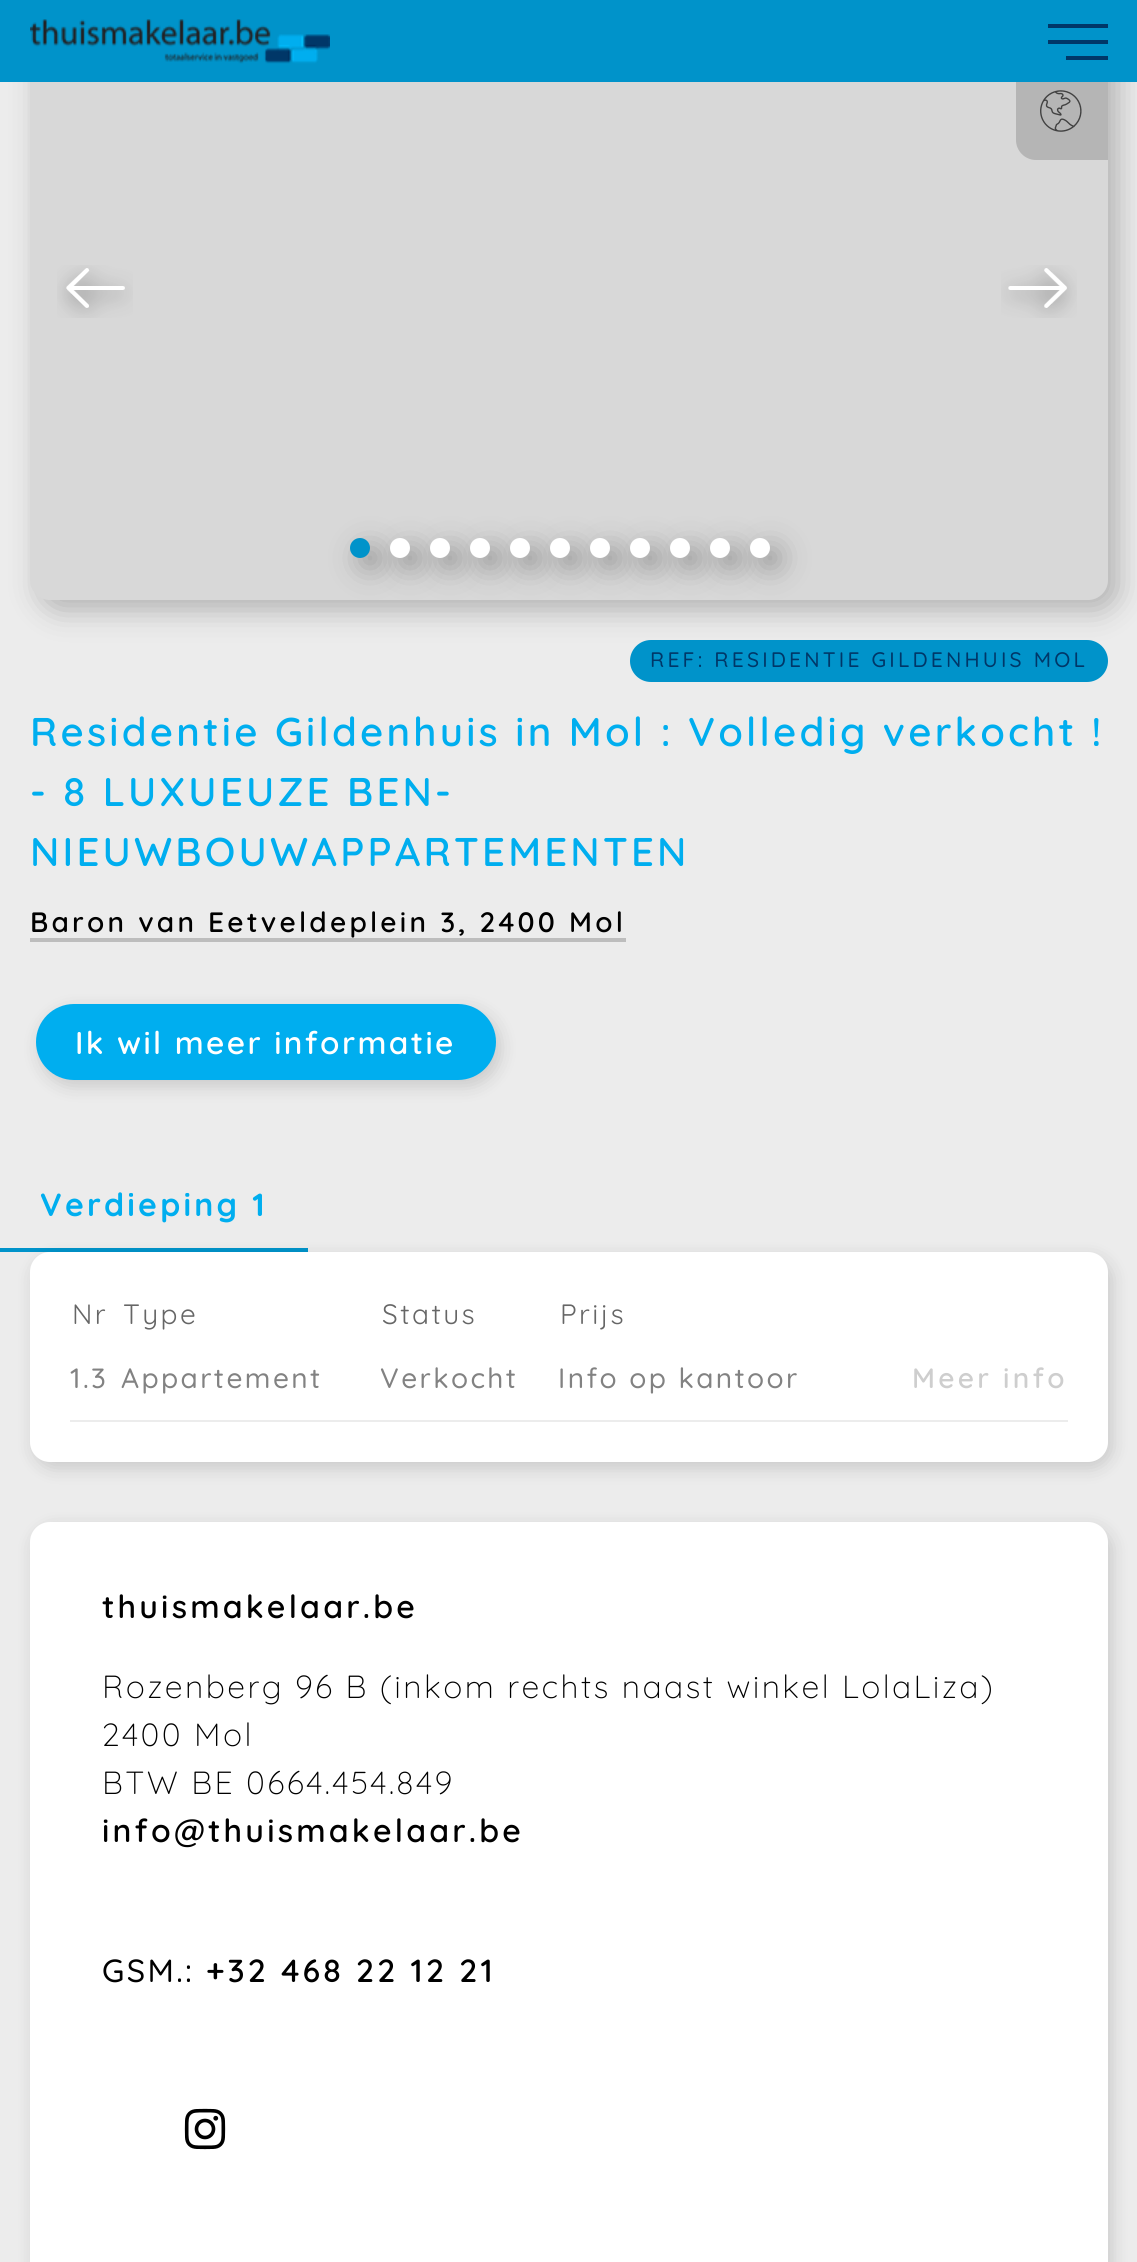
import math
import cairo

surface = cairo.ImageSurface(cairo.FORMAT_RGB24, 1137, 2262)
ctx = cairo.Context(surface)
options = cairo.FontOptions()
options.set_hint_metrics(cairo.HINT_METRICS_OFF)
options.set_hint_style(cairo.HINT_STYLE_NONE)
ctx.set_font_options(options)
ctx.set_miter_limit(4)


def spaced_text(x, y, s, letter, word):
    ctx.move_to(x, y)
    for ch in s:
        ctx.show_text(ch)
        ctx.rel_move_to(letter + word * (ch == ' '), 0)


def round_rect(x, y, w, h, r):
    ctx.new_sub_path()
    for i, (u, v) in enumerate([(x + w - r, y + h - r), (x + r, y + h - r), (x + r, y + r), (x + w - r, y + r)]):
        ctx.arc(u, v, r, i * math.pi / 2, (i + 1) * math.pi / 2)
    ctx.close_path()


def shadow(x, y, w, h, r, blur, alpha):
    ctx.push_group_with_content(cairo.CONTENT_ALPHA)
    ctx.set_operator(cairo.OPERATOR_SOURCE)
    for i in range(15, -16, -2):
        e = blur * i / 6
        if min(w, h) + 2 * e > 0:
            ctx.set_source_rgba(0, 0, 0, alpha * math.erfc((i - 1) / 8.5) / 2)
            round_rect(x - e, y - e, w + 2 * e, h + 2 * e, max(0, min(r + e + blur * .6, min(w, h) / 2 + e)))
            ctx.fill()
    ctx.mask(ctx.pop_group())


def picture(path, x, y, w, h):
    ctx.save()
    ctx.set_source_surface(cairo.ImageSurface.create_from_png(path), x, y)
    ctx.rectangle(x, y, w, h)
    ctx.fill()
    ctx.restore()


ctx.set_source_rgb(0.925, 0.925, 0.925)
ctx.paint()
ctx.set_source_rgb(0, 0, 0)
shadow(40, -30, 1078, 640, 20, 15, 0.25)
ctx.set_source_rgb(0.847, 0.847, 0.847)
round_rect(30, -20, 1078, 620, 20)
ctx.fill()
ctx.set_source_rgb(0.71, 0.71, 0.71)
ctx.new_path()
ctx.move_to(1016, 64)
ctx.line_to(1108, 64)
ctx.line_to(1108, 160)
ctx.line_to(1036, 160)
ctx.curve_to(1025, 160, 1016, 151, 1016, 140)
ctx.close_path()
ctx.fill()
ctx.set_source_rgb(0, 0.576, 0.792)
ctx.rectangle(0, 0, 1137, 82)
ctx.fill()
picture("img1.png", 30, 19, 300, 45)
ctx.set_source_rgb(0, 0.216, 0.408)
ctx.rectangle(1048, 24, 60, 4)
ctx.fill()
ctx.rectangle(1048, 40, 60, 4)
ctx.fill()
ctx.rectangle(1066, 56, 42, 4)
ctx.fill()
picture("img2.png", 57, 265, 76, 53)
picture("img3.png", 1001, 265, 76, 53)
ctx.set_source_rgb(0, 0, 0)
shadow(360, 548, 20, 20, 10, 15, 0.25)
ctx.set_source_rgb(0, 0.576, 0.792)
ctx.arc(360, 548, 10, 0, 2 * math.pi)
ctx.fill()
ctx.set_source_rgb(0, 0, 0)
shadow(400, 548, 20, 20, 10, 15, 0.25)
ctx.set_source_rgb(1, 1, 1)
ctx.arc(400, 548, 10, 0, 2 * math.pi)
ctx.fill()
ctx.set_source_rgb(0, 0, 0)
shadow(440, 548, 20, 20, 10, 15, 0.25)
ctx.set_source_rgb(1, 1, 1)
ctx.arc(440, 548, 10, 0, 2 * math.pi)
ctx.fill()
ctx.set_source_rgb(0, 0, 0)
shadow(480, 548, 20, 20, 10, 15, 0.25)
ctx.set_source_rgb(1, 1, 1)
ctx.arc(480, 548, 10, 0, 2 * math.pi)
ctx.fill()
ctx.set_source_rgb(0, 0, 0)
shadow(520, 548, 20, 20, 10, 15, 0.25)
ctx.set_source_rgb(1, 1, 1)
ctx.arc(520, 548, 10, 0, 2 * math.pi)
ctx.fill()
ctx.set_source_rgb(0, 0, 0)
shadow(560, 548, 20, 20, 10, 15, 0.25)
ctx.set_source_rgb(1, 1, 1)
ctx.arc(560, 548, 10, 0, 2 * math.pi)
ctx.fill()
ctx.set_source_rgb(0, 0, 0)
shadow(600, 548, 20, 20, 10, 15, 0.25)
ctx.set_source_rgb(1, 1, 1)
ctx.arc(600, 548, 10, 0, 2 * math.pi)
ctx.fill()
ctx.set_source_rgb(0, 0, 0)
shadow(640, 548, 20, 20, 10, 15, 0.25)
ctx.set_source_rgb(1, 1, 1)
ctx.arc(640, 548, 10, 0, 2 * math.pi)
ctx.fill()
ctx.set_source_rgb(0, 0, 0)
shadow(680, 548, 20, 20, 10, 15, 0.25)
ctx.set_source_rgb(1, 1, 1)
ctx.arc(680, 548, 10, 0, 2 * math.pi)
ctx.fill()
ctx.set_source_rgb(0, 0, 0)
shadow(720, 548, 20, 20, 10, 15, 0.25)
ctx.set_source_rgb(1, 1, 1)
ctx.arc(720, 548, 10, 0, 2 * math.pi)
ctx.fill()
ctx.set_source_rgb(0, 0, 0)
shadow(760, 548, 20, 20, 10, 15, 0.25)
ctx.set_source_rgb(1, 1, 1)
ctx.arc(760, 548, 10, 0, 2 * math.pi)
ctx.fill()
picture("img4.png", 1040, 90, 42, 42)
ctx.set_source_rgb(0, 0.576, 0.792)
round_rect(630, 640, 478, 42, 21)
ctx.fill()
ctx.select_font_face("Quicksand Medium")
ctx.set_font_size(21)
ctx.set_source_rgb(0, 0.216, 0.408)
spaced_text(650, 667, "REF: RESIDENTIE GILDENHUIS MOL", 3.2, 0)
ctx.select_font_face("Quicksand SemiBold")
ctx.set_font_size(40.05)
ctx.set_source_rgb(0, 0.682, 0.937)
spaced_text(30, 746, "Residentie Gildenhuis in Mol : Volledig verkocht !", 3.2, 0)
spaced_text(30, 806, "- 8 LUXUEUZE BEN-", 3.2, 0)
spaced_text(30, 866, "NIEUWBOUWAPPARTEMENTEN", 3.2, 0)
ctx.set_font_size(28)
ctx.set_source_rgb(0, 0, 0)
spaced_text(30, 932, "Baron van Eetveldeplein 3, 2400 Mol", 3.2, 0)
ctx.set_source_rgb(0.741, 0.741, 0.741)
ctx.rectangle(30, 938, 596, 4)
ctx.fill()
ctx.set_source_rgb(0, 0, 0)
shadow(40, 1010, 460, 76, 38, 9, 0.15)
ctx.set_source_rgb(0, 0.682, 0.937)
round_rect(36, 1004, 460, 76, 38)
ctx.fill()
ctx.set_font_size(31.5)
ctx.set_source_rgb(1, 1, 1)
spaced_text(75, 1054, "Ik wil meer informatie", 2.4, 0)
ctx.set_source_rgb(0, 0.576, 0.792)
ctx.rectangle(0, 1248, 308, 4)
ctx.fill()
ctx.select_font_face("Quicksand", cairo.FONT_SLANT_NORMAL, cairo.FONT_WEIGHT_BOLD)
ctx.set_font_size(32)
ctx.set_source_rgb(0, 0.682, 0.937)
spaced_text(40, 1216, "Verdieping 1", 3.2, 0)
ctx.set_source_rgb(0, 0, 0)
shadow(34, 1258, 1078, 210, 20, 9, 0.15)
ctx.set_source_rgb(1, 1, 1)
round_rect(30, 1252, 1078, 210, 20)
ctx.fill()
ctx.select_font_face("Quicksand")
ctx.set_font_size(28)
ctx.set_source_rgb(0.4, 0.4, 0.4)
spaced_text(72, 1324, "Nr", 2.4, 0)
spaced_text(123, 1324, "Type", 2.4, 0)
spaced_text(382, 1324, "Status", 2.4, 0)
spaced_text(560, 1324, "Prijs", 2.4, 0)
ctx.set_source_rgb(0.925, 0.925, 0.925)
ctx.rectangle(70, 1420, 998, 2)
ctx.fill()
ctx.select_font_face("Quicksand Medium")
ctx.set_source_rgb(0.51, 0.51, 0.51)
spaced_text(70, 1388, "1.3", 2.4, 0)
spaced_text(121, 1388, "Appartement", 2.4, 0)
spaced_text(380, 1388, "Verkocht", 2.4, 0)
spaced_text(558, 1388, "Info op kantoor", 2.4, 0)
ctx.select_font_face("Quicksand SemiBold")
ctx.set_source_rgb(0.808, 0.808, 0.808)
spaced_text(912, 1388, "Meer info", 3.2, 0)
ctx.set_source_rgb(0, 0, 0)
shadow(34, 1528, 1078, 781, 20, 9, 0.15)
ctx.set_source_rgb(1, 1, 1)
round_rect(30, 1522, 1078, 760, 20)
ctx.fill()
ctx.set_font_size(32)
ctx.set_source_rgb(0, 0, 0)
spaced_text(102, 1618, "thuismakelaar.be", 3.2, 0)
ctx.select_font_face("Quicksand Light")
spaced_text(102, 1698, "Rozenberg 96 B (inkom rechts naast winkel LolaLiza)", 2.4, 0)
spaced_text(102, 1746, "2400 Mol", 2.4, 0)
spaced_text(102, 1794, "BTW BE 0664.454.849", 2.4, 0)
ctx.select_font_face("Quicksand SemiBold")
spaced_text(102, 1842, "info@thuismakelaar.be", 3.2, 0)
ctx.select_font_face("Quicksand Medium")
spaced_text(102, 1982, "GSM.:", 2.4, 0)
ctx.select_font_face("Quicksand SemiBold")
spaced_text(206, 1982, "+32 468 22 12 21", 3.2, 0)
picture("img5.png", 184, 2108, 42, 42)
surface.write_to_png("page.png")
